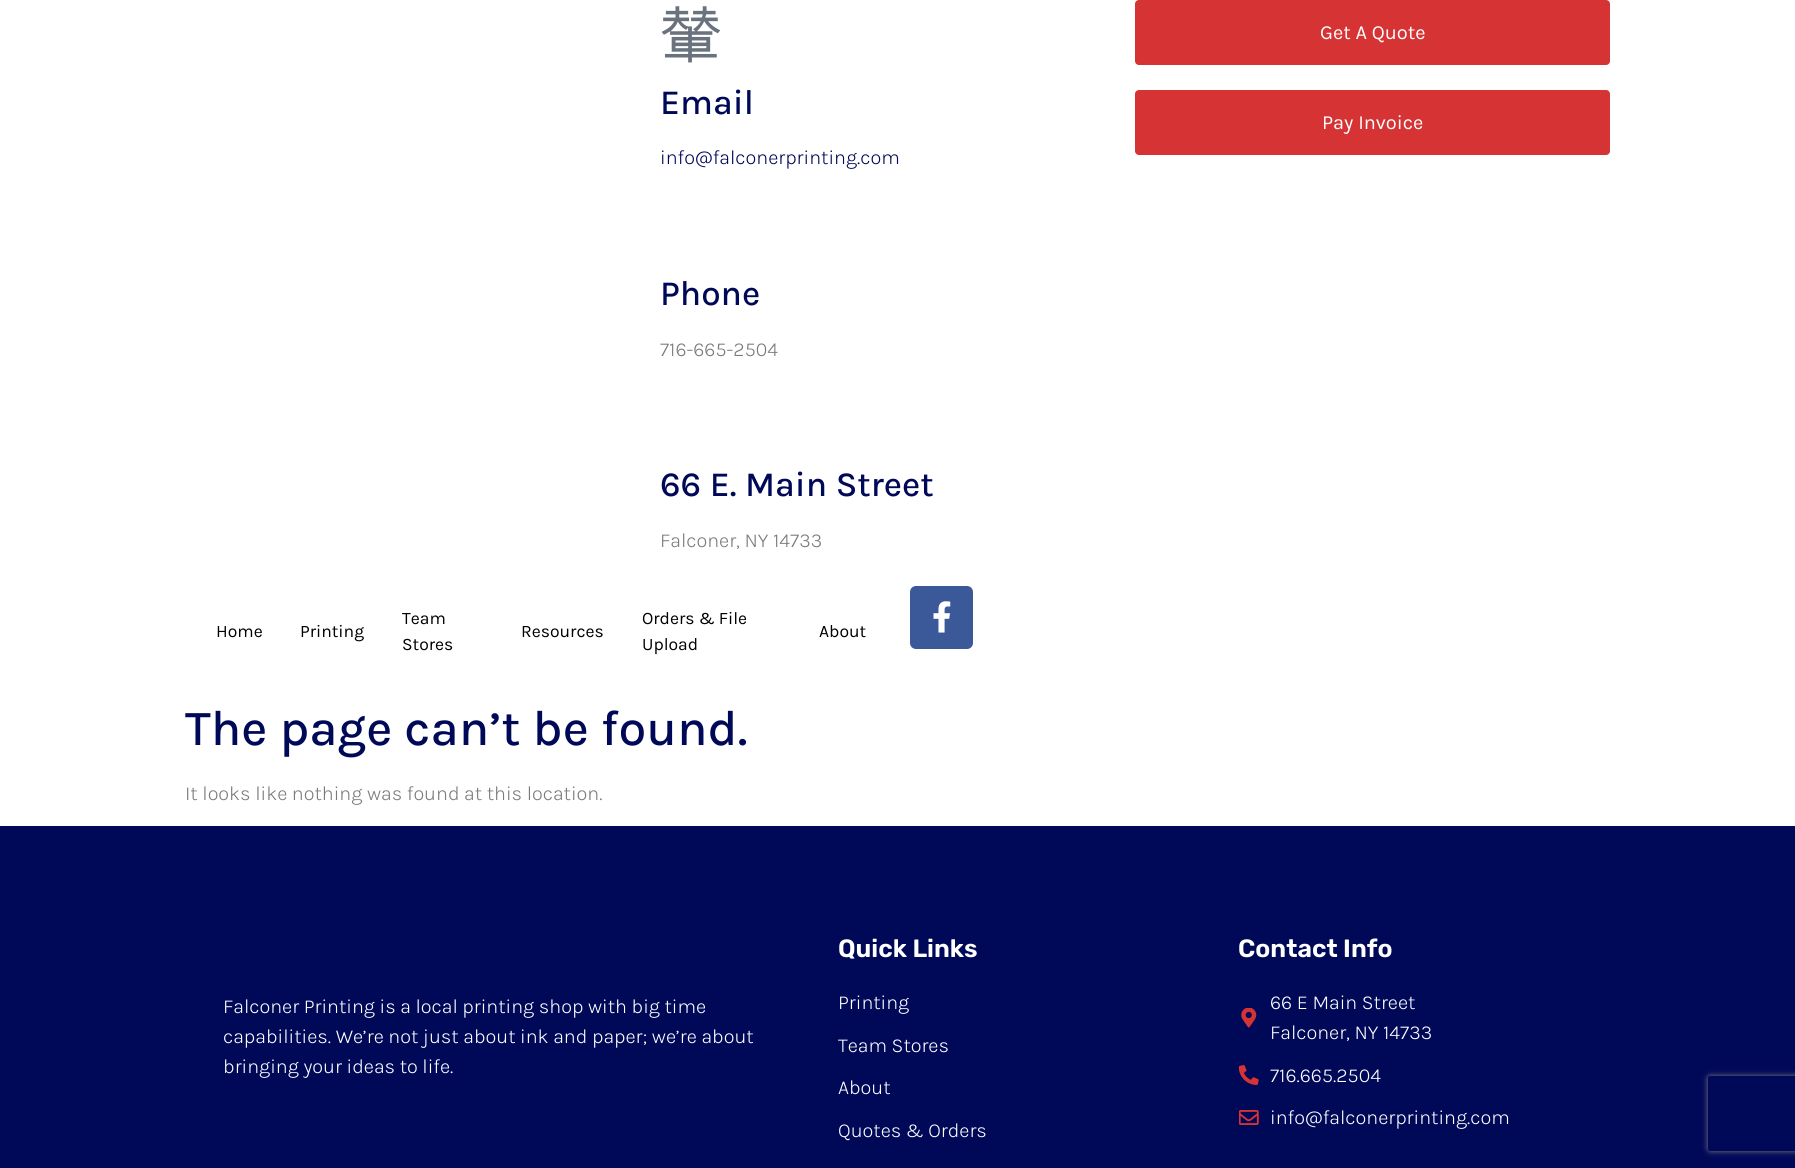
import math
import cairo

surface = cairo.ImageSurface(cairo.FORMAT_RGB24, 1795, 1168)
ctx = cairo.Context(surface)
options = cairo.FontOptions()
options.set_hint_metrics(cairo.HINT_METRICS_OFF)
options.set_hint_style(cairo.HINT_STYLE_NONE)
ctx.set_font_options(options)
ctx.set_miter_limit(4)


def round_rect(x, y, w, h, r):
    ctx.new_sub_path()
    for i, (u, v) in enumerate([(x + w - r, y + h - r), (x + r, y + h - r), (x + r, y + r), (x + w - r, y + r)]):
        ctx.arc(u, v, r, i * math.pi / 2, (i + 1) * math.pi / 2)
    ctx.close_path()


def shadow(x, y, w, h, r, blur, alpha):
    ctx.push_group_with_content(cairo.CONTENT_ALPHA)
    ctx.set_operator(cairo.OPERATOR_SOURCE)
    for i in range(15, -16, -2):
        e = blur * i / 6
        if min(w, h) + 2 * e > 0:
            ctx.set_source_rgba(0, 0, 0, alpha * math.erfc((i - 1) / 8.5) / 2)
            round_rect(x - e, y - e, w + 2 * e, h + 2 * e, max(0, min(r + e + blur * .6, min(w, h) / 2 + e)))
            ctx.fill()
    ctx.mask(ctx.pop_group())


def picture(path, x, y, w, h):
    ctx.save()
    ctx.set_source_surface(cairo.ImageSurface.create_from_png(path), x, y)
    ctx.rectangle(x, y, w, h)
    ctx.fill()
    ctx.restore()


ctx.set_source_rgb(1, 1, 1)
ctx.paint()
ctx.select_font_face("WenQuanYi Zen Hei Medium")
ctx.set_font_size(62)
ctx.set_source_rgb(0.412, 0.447, 0.49)
ctx.move_to(660, 53)
ctx.show_text("輦")
ctx.select_font_face("Karla Medium")
ctx.set_font_size(35)
ctx.set_source_rgb(0, 0.035, 0.345)
ctx.move_to(660, 114)
ctx.show_text("Email")
ctx.select_font_face("Karla Light")
ctx.set_font_size(20)
ctx.move_to(660, 164)
ctx.show_text("info@falconerprinting.com")
ctx.select_font_face("Karla Medium")
ctx.set_font_size(35)
ctx.move_to(660, 305)
ctx.show_text("Phone")
ctx.select_font_face("Karla Light")
ctx.set_font_size(20)
ctx.set_source_rgb(0.478, 0.478, 0.478)
ctx.move_to(660, 356)
ctx.show_text("716-665-2504")
ctx.select_font_face("Karla Medium")
ctx.set_font_size(35)
ctx.set_source_rgb(0, 0.035, 0.345)
ctx.move_to(660, 496)
ctx.show_text("66 E. Main Street")
ctx.select_font_face("Karla Light")
ctx.set_font_size(20)
ctx.set_source_rgb(0.478, 0.478, 0.478)
ctx.move_to(660, 547)
ctx.show_text("Falconer, NY 14733")
ctx.set_source_rgb(0.839, 0.2, 0.208)
round_rect(1135, 0, 475, 65, 4)
ctx.fill()
ctx.select_font_face("Karla")
ctx.set_source_rgb(1, 1, 1)
ctx.move_to(1320, 39)
ctx.show_text("Get A Quote")
ctx.set_source_rgb(0.839, 0.2, 0.208)
round_rect(1135, 90, 475, 65, 4)
ctx.fill()
ctx.set_source_rgb(1, 1, 1)
ctx.move_to(1322, 129)
ctx.show_text("Pay Invoice")
ctx.set_font_size(17.5)
ctx.set_source_rgb(0, 0, 0)
ctx.move_to(216, 637)
ctx.show_text("Home")
ctx.move_to(300, 637)
ctx.show_text("Printing")
ctx.move_to(402, 624)
ctx.show_text("Team")
ctx.move_to(402, 650)
ctx.show_text("Stores")
ctx.move_to(521, 637)
ctx.show_text("Resources")
ctx.move_to(642, 624)
ctx.show_text("Orders & File")
ctx.move_to(642, 650)
ctx.show_text("Upload")
ctx.move_to(819, 637)
ctx.show_text("About")
ctx.set_source_rgb(0.231, 0.349, 0.596)
round_rect(910, 586, 63, 63, 6)
ctx.fill()
picture("img1.png", 933, 601, 18, 32)
ctx.select_font_face("Karla Medium")
ctx.set_font_size(50)
ctx.set_source_rgb(0, 0.035, 0.345)
ctx.move_to(185, 745)
ctx.show_text("The page can’t be found.")
ctx.select_font_face("Karla Light")
ctx.set_font_size(20)
ctx.set_source_rgb(0.478, 0.478, 0.478)
ctx.move_to(185, 800)
ctx.show_text("It looks like nothing was found at this location.")
ctx.set_source_rgb(0, 0.035, 0.345)
ctx.rectangle(0, 826, 1795, 342)
ctx.fill()
ctx.set_source_rgb(1, 1, 1)
ctx.move_to(223, 1013)
ctx.show_text("Falconer Printing is a local printing shop with big time")
ctx.move_to(223, 1043)
ctx.show_text("capabilities. We’re not just about ink and paper; we’re about")
ctx.move_to(223, 1073)
ctx.show_text("bringing your ideas to life.")
ctx.select_font_face("Rubik SemiBold")
ctx.set_font_size(25)
ctx.move_to(838, 957)
ctx.show_text("Quick Links")
ctx.select_font_face("Karla Light")
ctx.set_font_size(20)
ctx.move_to(838, 1009)
ctx.show_text("Printing")
ctx.move_to(838, 1052)
ctx.show_text("Team Stores")
ctx.move_to(838, 1094)
ctx.show_text("About")
ctx.move_to(838, 1137)
ctx.show_text("Quotes & Orders")
ctx.select_font_face("Rubik SemiBold")
ctx.set_font_size(25)
ctx.move_to(1238, 957)
ctx.show_text("Contact Info")
picture("img2.png", 1241, 1008, 16, 20)
ctx.select_font_face("Karla Light")
ctx.set_font_size(20)
ctx.move_to(1270, 1009)
ctx.show_text("66 E Main Street")
ctx.move_to(1270, 1039)
ctx.show_text("Falconer, NY 14733")
picture("img3.png", 1239, 1065, 20, 20)
ctx.move_to(1270, 1082)
ctx.show_text("716.665.2504")
picture("img4.png", 1239, 1110, 20, 15)
ctx.move_to(1270, 1124)
ctx.show_text("info@falconerprinting.com")
ctx.save()
ctx.set_fill_rule(cairo.FILL_RULE_EVEN_ODD)
ctx.new_path()
ctx.move_to(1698, 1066)
ctx.line_to(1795, 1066)
ctx.line_to(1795, 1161)
ctx.line_to(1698, 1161)
ctx.close_path()
ctx.move_to(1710.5, 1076)
ctx.line_to(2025.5, 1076)
ctx.curve_to(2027, 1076, 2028, 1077, 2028, 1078.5)
ctx.line_to(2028, 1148.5)
ctx.curve_to(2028, 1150, 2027, 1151, 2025.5, 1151)
ctx.line_to(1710.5, 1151)
ctx.curve_to(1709, 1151, 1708, 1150, 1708, 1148.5)
ctx.line_to(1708, 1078.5)
ctx.curve_to(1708, 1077, 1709, 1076, 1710.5, 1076)
ctx.close_path()
ctx.clip()
ctx.set_source_rgb(0.502, 0.502, 0.502)
shadow(1708, 1076, 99, 75, 2.5, 3, 1)
ctx.restore()
surface.write_to_png("page.png")
